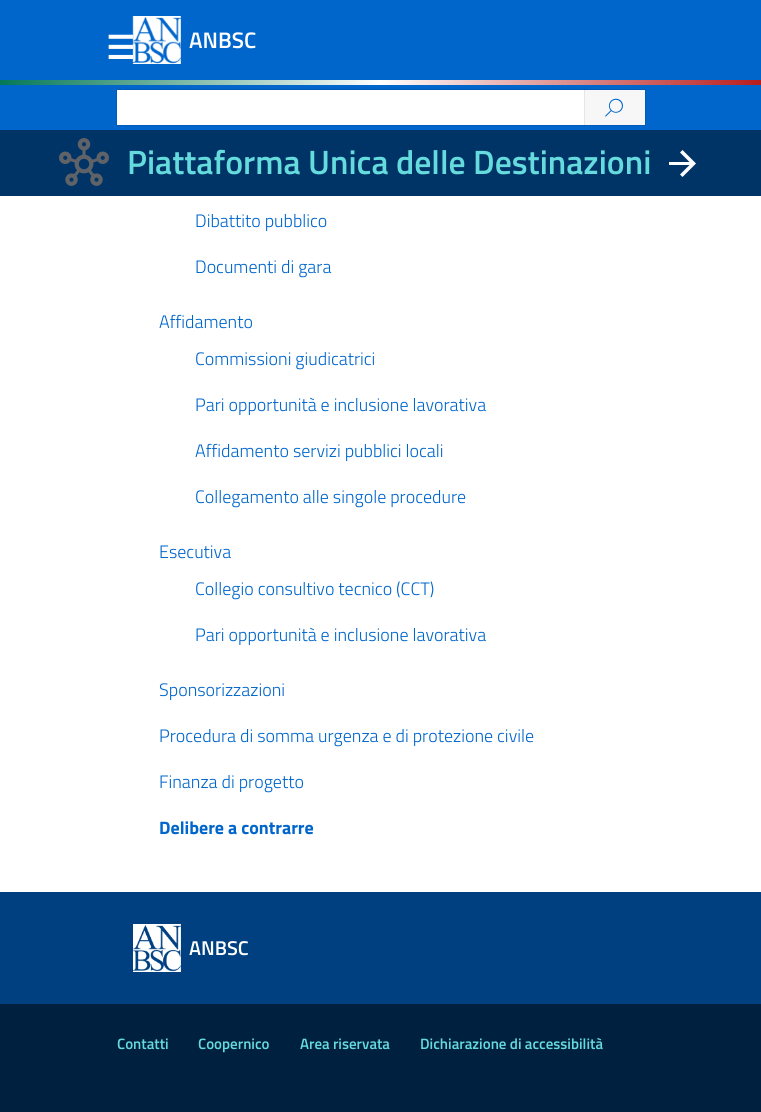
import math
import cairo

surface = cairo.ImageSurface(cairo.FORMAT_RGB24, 761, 1112)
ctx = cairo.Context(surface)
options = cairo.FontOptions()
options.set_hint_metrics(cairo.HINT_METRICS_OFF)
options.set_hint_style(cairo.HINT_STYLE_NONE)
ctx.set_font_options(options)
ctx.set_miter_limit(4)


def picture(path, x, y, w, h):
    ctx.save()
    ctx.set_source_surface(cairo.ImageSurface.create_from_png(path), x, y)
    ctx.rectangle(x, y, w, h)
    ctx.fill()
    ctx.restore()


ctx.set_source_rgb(1, 1, 1)
ctx.paint()
ctx.set_source_rgb(0, 0.4, 0.8)
ctx.rectangle(0, 0, 761, 80)
ctx.fill()
picture("img1.png", 132, 16, 49, 48)
ctx.select_font_face("Titillium Web SemiBold")
ctx.set_font_size(22.5)
ctx.set_source_rgb(1, 1, 1)
ctx.move_to(189, 48)
ctx.show_text("ANBSC")
ctx.set_source_rgb(0, 0.4, 0.8)
ctx.rectangle(0, 85, 761, 45)
ctx.fill()
ctx.select_font_face("DejaVu Sans", cairo.FONT_SLANT_NORMAL, cairo.FONT_WEIGHT_BOLD)
ctx.set_font_size(32)
ctx.set_source_rgb(1, 1, 1)
ctx.move_to(106, 59)
ctx.show_text("☰")
ctx.rectangle(116.5, 89.5, 469, 36)
ctx.set_source_rgb(0, 0.361, 0.722)
ctx.set_line_width(1)
ctx.stroke()
ctx.set_source_rgb(1, 1, 1)
ctx.rectangle(117, 90, 468, 35)
ctx.fill()
ctx.rectangle(584.5, 89.5, 61, 36)
ctx.set_source_rgba(0, 0, 0, 0.1)
ctx.stroke()
ctx.set_source_rgb(0.965, 0.965, 0.965)
ctx.rectangle(585, 90, 60, 35)
ctx.fill()
picture("img2.png", 605, 98, 18, 19)
ctx.set_source_rgb(0, 0.2, 0.4)
ctx.rectangle(0, 130, 761, 66)
ctx.fill()
picture("img3.png", 59, 138, 50, 48)
ctx.select_font_face("Titillium Web SemiBold")
ctx.set_font_size(33.75)
ctx.set_source_rgb(0.396, 0.859, 0.871)
ctx.move_to(127, 174)
ctx.show_text("Piattaforma Unica delle Destinazioni")
ctx.set_source_rgb(1, 1, 1)
ctx.new_path()
ctx.move_to(669, 165)
ctx.line_to(689.5, 165)
ctx.line_to(680, 174.5)
ctx.line_to(682.5, 177)
ctx.line_to(696, 163.5)
ctx.line_to(682.5, 150)
ctx.line_to(680, 152.5)
ctx.line_to(689.5, 162)
ctx.line_to(669, 162)
ctx.close_path()
ctx.fill()
gradient = cairo.LinearGradient(0, 83, 761, 82)
gradient.add_color_stop_rgba(0, 0.016, 0.471, 0.341, 1)
gradient.add_color_stop_rgba(0.5, 1, 1, 1, 1)
gradient.add_color_stop_rgba(1, 0.725, 0.11, 0.11, 1)
ctx.set_source(gradient)
ctx.rectangle(0, 80, 761, 5)
ctx.fill()
ctx.select_font_face("Titillium Web Light")
ctx.set_font_size(18)
ctx.set_source_rgb(0, 0.4, 0.8)
ctx.move_to(195, 227)
ctx.show_text("Dibattito pubblico")
ctx.move_to(195, 273)
ctx.show_text("Documenti di gara")
ctx.move_to(159, 328)
ctx.show_text("Affidamento")
ctx.move_to(195, 365)
ctx.show_text("Commissioni giudicatrici")
ctx.move_to(195, 411)
ctx.show_text("Pari opportunità e inclusione lavorativa")
ctx.move_to(195, 457)
ctx.show_text("Affidamento servizi pubblici locali")
ctx.move_to(195, 503)
ctx.show_text("Collegamento alle singole procedure")
ctx.move_to(159, 558)
ctx.show_text("Esecutiva")
ctx.move_to(195, 595)
ctx.show_text("Collegio consultivo tecnico (CCT)")
ctx.move_to(195, 641)
ctx.show_text("Pari opportunità e inclusione lavorativa")
ctx.move_to(159, 696)
ctx.show_text("Sponsorizzazioni")
ctx.move_to(159, 742)
ctx.show_text("Procedura di somma urgenza e di protezione civile")
ctx.move_to(159, 788)
ctx.show_text("Finanza di progetto")
ctx.select_font_face("Titillium Web", cairo.FONT_SLANT_NORMAL, cairo.FONT_WEIGHT_BOLD)
ctx.move_to(159, 834)
ctx.show_text("Delibere a contrarre")
ctx.set_source_rgb(0, 0.251, 0.502)
ctx.rectangle(0, 892, 761, 112)
ctx.fill()
picture("img4.png", 133, 924, 48, 48)
ctx.select_font_face("Titillium Web SemiBold")
ctx.set_font_size(20)
ctx.set_source_rgb(1, 1, 1)
ctx.move_to(189, 955)
ctx.show_text("ANBSC")
ctx.set_source_rgb(0, 0.125, 0.251)
ctx.rectangle(0, 1004, 761, 108)
ctx.fill()
ctx.set_font_size(15)
ctx.set_source_rgb(0.396, 0.859, 0.871)
ctx.move_to(117, 1049)
ctx.show_text("Contatti")
ctx.move_to(198, 1049)
ctx.show_text("Coopernico")
ctx.move_to(300, 1049)
ctx.show_text("Area riservata")
ctx.move_to(420, 1049)
ctx.show_text("Dichiarazione di accessibilità")
surface.write_to_png("page.png")
